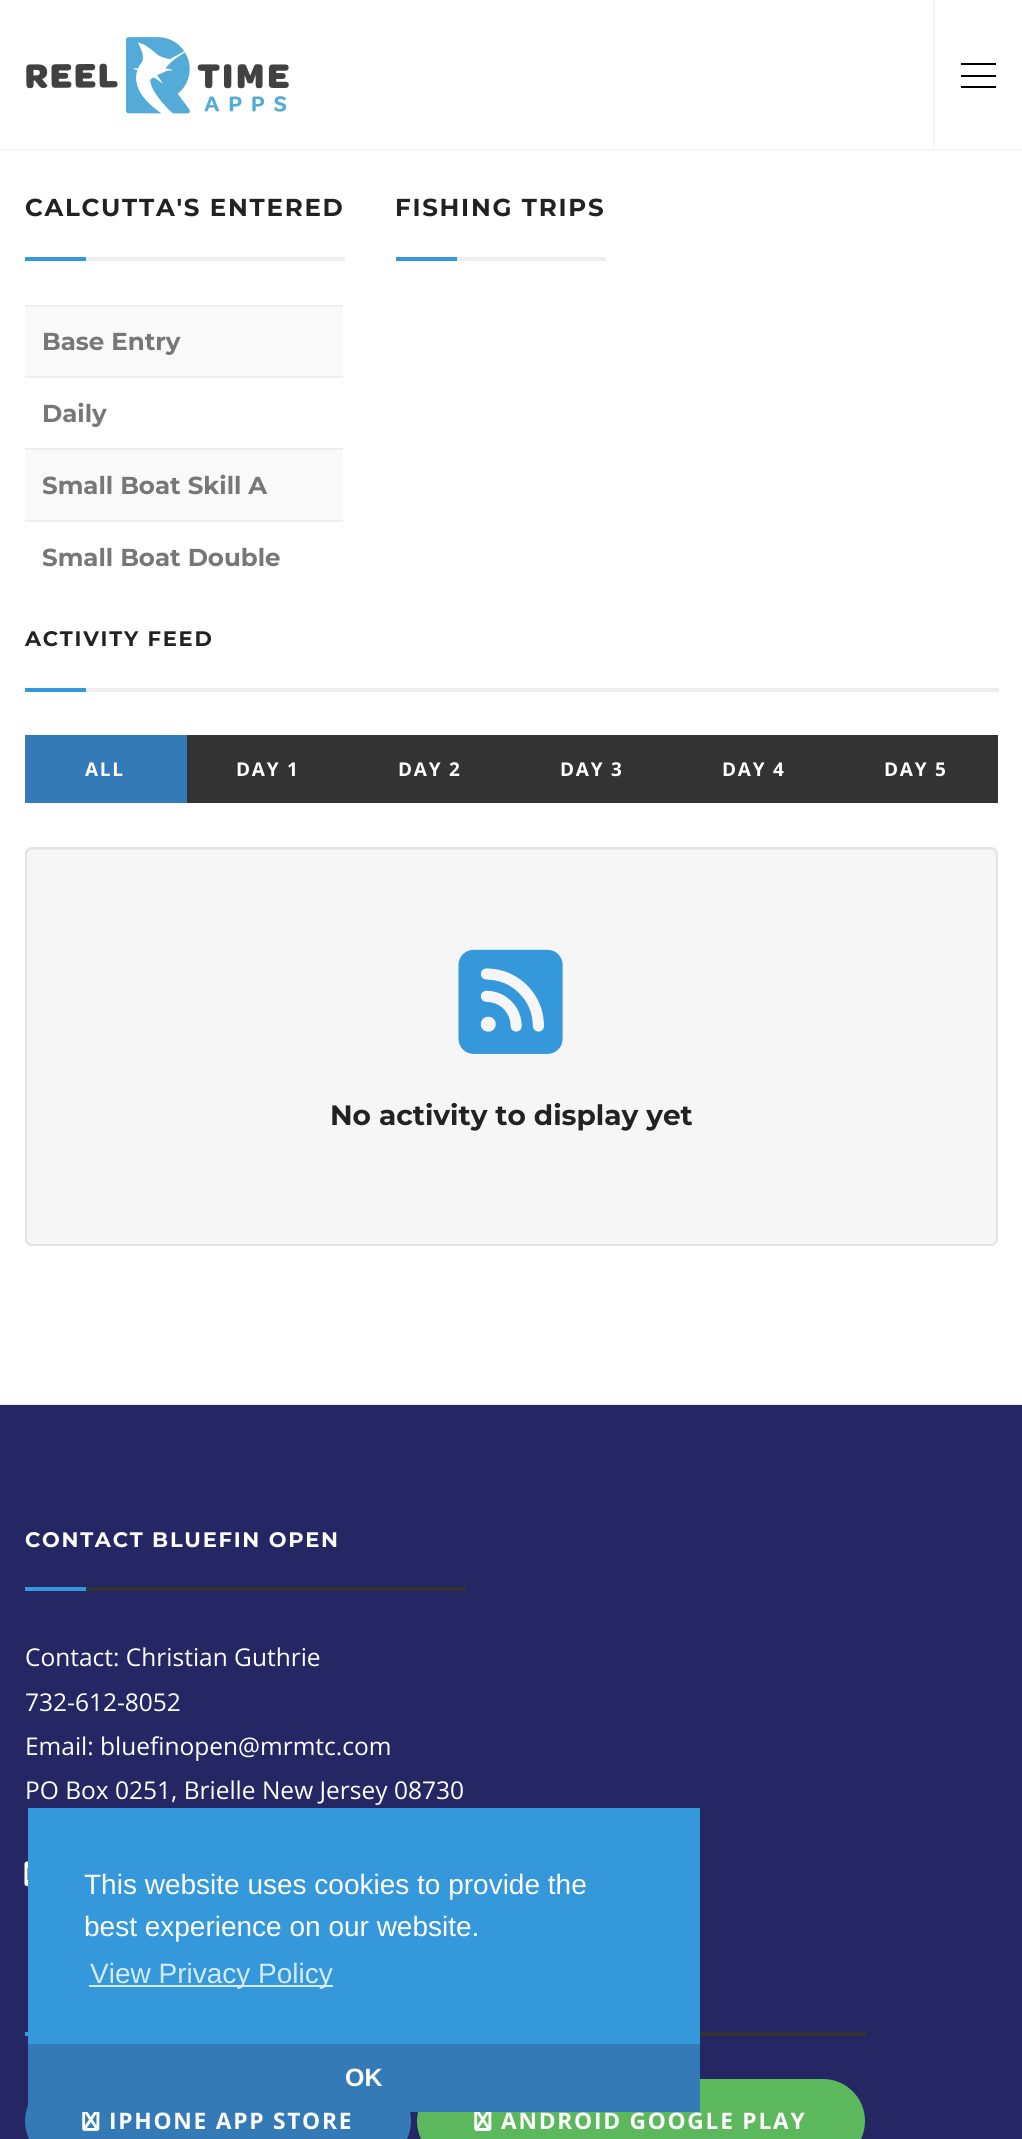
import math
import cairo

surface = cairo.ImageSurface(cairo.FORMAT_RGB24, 1022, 2139)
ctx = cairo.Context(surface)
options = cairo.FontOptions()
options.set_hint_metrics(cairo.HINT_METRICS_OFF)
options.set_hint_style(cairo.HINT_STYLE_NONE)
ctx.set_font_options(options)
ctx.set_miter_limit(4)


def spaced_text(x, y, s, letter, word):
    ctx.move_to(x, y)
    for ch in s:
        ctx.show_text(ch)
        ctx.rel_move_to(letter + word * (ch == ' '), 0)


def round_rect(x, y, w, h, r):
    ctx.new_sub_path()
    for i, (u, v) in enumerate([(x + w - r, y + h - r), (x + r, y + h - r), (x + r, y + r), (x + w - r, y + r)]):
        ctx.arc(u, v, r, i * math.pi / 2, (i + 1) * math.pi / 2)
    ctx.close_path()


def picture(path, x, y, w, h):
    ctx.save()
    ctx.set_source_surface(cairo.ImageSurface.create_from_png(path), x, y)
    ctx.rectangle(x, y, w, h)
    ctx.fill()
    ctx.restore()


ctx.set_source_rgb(1, 1, 1)
ctx.paint()
ctx.set_source_rgb(0.961, 0.961, 0.961)
ctx.rectangle(0, 149, 1022, 2)
ctx.fill()
picture("img1.png", 26, 37, 263, 77)
ctx.rectangle(933, 0, 2, 151)
ctx.fill()
ctx.set_source_rgb(0, 0, 0)
ctx.rectangle(961, 63, 35, 2)
ctx.fill()
ctx.rectangle(961, 75, 35, 2)
ctx.fill()
ctx.rectangle(961, 86, 35, 2)
ctx.fill()
ctx.set_source_rgb(0.933, 0.933, 0.933)
ctx.rectangle(0, 1404, 1022, 1)
ctx.fill()
ctx.select_font_face("Montserrat Thin")
ctx.set_font_size(24.5)
ctx.set_source_rgb(0.133, 0.133, 0.133)
spaced_text(25, 216, "CALCUTTA'S ENTERED", 1.75, 0)
ctx.set_source_rgb(0.204, 0.596, 0.859)
ctx.rectangle(25, 257, 61, 4)
ctx.fill()
ctx.set_source_rgb(0.933, 0.933, 0.933)
ctx.rectangle(86, 257, 259, 4)
ctx.fill()
ctx.set_source_rgb(0.976, 0.976, 0.976)
ctx.rectangle(25, 307, 318, 69)
ctx.fill()
ctx.set_source_rgb(0.933, 0.933, 0.933)
ctx.rectangle(25, 305, 318, 2)
ctx.fill()
ctx.set_source_rgb(0.467, 0.467, 0.467)
ctx.move_to(42, 350)
ctx.show_text("Base Entry")
ctx.set_source_rgb(0.933, 0.933, 0.933)
ctx.rectangle(25, 376, 318, 2)
ctx.fill()
ctx.set_source_rgb(0.467, 0.467, 0.467)
ctx.move_to(42, 422)
ctx.show_text("Daily")
ctx.set_source_rgb(0.976, 0.976, 0.976)
ctx.rectangle(25, 450, 318, 70)
ctx.fill()
ctx.set_source_rgb(0.933, 0.933, 0.933)
ctx.rectangle(25, 448, 318, 2)
ctx.fill()
ctx.set_source_rgb(0.467, 0.467, 0.467)
ctx.move_to(42, 494)
ctx.show_text("Small Boat Skill A")
ctx.set_source_rgb(0.933, 0.933, 0.933)
ctx.rectangle(25, 520, 318, 2)
ctx.fill()
ctx.set_source_rgb(0.467, 0.467, 0.467)
ctx.move_to(42, 566)
ctx.show_text("Small Boat Double")
ctx.set_source_rgb(0.133, 0.133, 0.133)
spaced_text(395, 216, "FISHING TRIPS", 1.75, 0)
ctx.set_source_rgb(0.204, 0.596, 0.859)
ctx.rectangle(396, 257, 61, 4)
ctx.fill()
ctx.set_source_rgb(0.933, 0.933, 0.933)
ctx.rectangle(457, 257, 149, 4)
ctx.fill()
ctx.set_font_size(21)
ctx.set_source_rgb(0.133, 0.133, 0.133)
spaced_text(25, 646, "ACTIVITY FEED", 1.75, 0)
ctx.set_source_rgb(0.204, 0.596, 0.859)
ctx.rectangle(25, 688, 61, 4)
ctx.fill()
ctx.set_source_rgb(0.933, 0.933, 0.933)
ctx.rectangle(86, 688, 913, 4)
ctx.fill()
ctx.set_source_rgb(0.2, 0.478, 0.718)
ctx.rectangle(25, 735, 162, 68)
ctx.fill()
ctx.select_font_face("Open Sans", cairo.FONT_SLANT_NORMAL, cairo.FONT_WEIGHT_BOLD)
ctx.set_font_size(19)
ctx.set_source_rgb(1, 1, 1)
spaced_text(85, 776, "ALL", 1.75, 0)
ctx.set_source_rgb(0.2, 0.2, 0.2)
ctx.rectangle(187, 735, 811, 68)
ctx.fill()
ctx.set_source_rgb(1, 1, 1)
spaced_text(236, 776, "DAY 1", 1.75, 0)
spaced_text(398, 776, "DAY 2", 1.75, 0)
spaced_text(560, 776, "DAY 3", 1.75, 0)
spaced_text(722, 776, "DAY 4", 1.75, 0)
spaced_text(884, 776, "DAY 5", 1.75, 0)
ctx.set_source_rgb(0.961, 0.961, 0.961)
round_rect(25, 847, 973, 399, 7)
ctx.fill()
ctx.set_source_rgb(0.914, 0.914, 0.914)
ctx.new_path()
ctx.move_to(32, 850)
ctx.line_to(990, 850)
ctx.curve_to(993, 850, 996, 853, 996, 856)
ctx.line_to(996, 854)
ctx.curve_to(996, 851, 994, 849, 991, 849)
ctx.line_to(31, 849)
ctx.curve_to(28, 849, 26, 851, 26, 854)
ctx.line_to(26, 856)
ctx.curve_to(26, 853, 29, 850, 32, 850)
ctx.close_path()
ctx.fill()
round_rect(26, 848, 971, 397, 6)
ctx.set_source_rgb(0.89, 0.89, 0.89)
ctx.stroke()
picture("img2.png", 458, 949, 105, 105)
ctx.select_font_face("Montserrat Thin")
ctx.set_font_size(28)
ctx.set_source_rgb(0.133, 0.133, 0.133)
ctx.move_to(330, 1125)
ctx.show_text("No activity to display yet")
ctx.set_source_rgb(0.145, 0.153, 0.392)
ctx.rectangle(0, 1405, 1022, 734)
ctx.fill()
ctx.set_font_size(21)
ctx.set_source_rgb(1, 1, 1)
spaced_text(25, 1547, "CONTACT BLUEFIN OPEN", 1.75, 0)
ctx.set_source_rgb(0.204, 0.596, 0.859)
ctx.rectangle(25, 1587, 61, 4)
ctx.fill()
ctx.set_source_rgb(0.2, 0.2, 0.2)
ctx.rectangle(86, 1587, 380, 4)
ctx.fill()
ctx.select_font_face("Open Sans")
ctx.set_font_size(24.5)
ctx.set_source_rgb(1, 1, 1)
ctx.move_to(25, 1666)
ctx.show_text("Contact: Christian Guthrie")
ctx.move_to(25, 1711)
ctx.show_text("732-612-8052")
ctx.move_to(25, 1755)
ctx.show_text("Email: bluefinopen@mrmtc.com")
ctx.move_to(25, 1799)
ctx.show_text("PO Box 0251, Brielle New Jersey 08730")
picture("img3.png", 24, 1861, 4, 26)
ctx.set_source_rgb(0.204, 0.596, 0.859)
ctx.rectangle(25, 2032, 3, 4)
ctx.fill()
ctx.set_source_rgb(0.2, 0.2, 0.2)
ctx.rectangle(700, 2032, 166, 4)
ctx.fill()
ctx.set_source_rgb(0.2, 0.478, 0.718)
round_rect(27, 2081, 382, 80, 40)
ctx.fill_preserve()
ctx.set_line_width(4)
ctx.stroke()
picture("img4.png", 82, 2112, 18, 19)
ctx.select_font_face("Open Sans", cairo.FONT_SLANT_NORMAL, cairo.FONT_WEIGHT_BOLD)
ctx.set_font_size(22.75)
ctx.set_source_rgb(1, 1, 1)
spaced_text(109, 2129, "IPHONE APP STORE", 1.75, 0)
ctx.set_source_rgb(0.361, 0.722, 0.361)
round_rect(419, 2081, 444, 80, 40)
ctx.fill_preserve()
ctx.stroke()
picture("img5.png", 474, 2112, 18, 19)
ctx.set_source_rgb(1, 1, 1)
spaced_text(501, 2129, "ANDROID GOOGLE PLAY", 1.75, 0)
ctx.set_source_rgb(0.204, 0.596, 0.859)
ctx.rectangle(28, 1808, 672, 236)
ctx.fill()
ctx.select_font_face("Liberation Sans")
ctx.set_font_size(28)
ctx.set_source_rgb(1, 1, 1)
ctx.move_to(84, 1894)
ctx.show_text("This website uses cookies to provide the")
ctx.move_to(84, 1936)
ctx.show_text("best experience on our website.")
ctx.set_source_rgb(0.839, 0.918, 0.973)
ctx.rectangle(89, 1985, 244, 2)
ctx.fill()
ctx.move_to(90, 1983)
ctx.show_text("View Privacy Policy")
ctx.set_source_rgb(0.2, 0.478, 0.718)
ctx.rectangle(28, 2044, 672, 68)
ctx.fill()
ctx.select_font_face("Liberation Sans", cairo.FONT_SLANT_NORMAL, cairo.FONT_WEIGHT_BOLD)
ctx.set_font_size(25)
ctx.set_source_rgb(1, 1, 1)
ctx.move_to(345, 2086)
ctx.show_text("OK")
surface.write_to_png("page.png")
